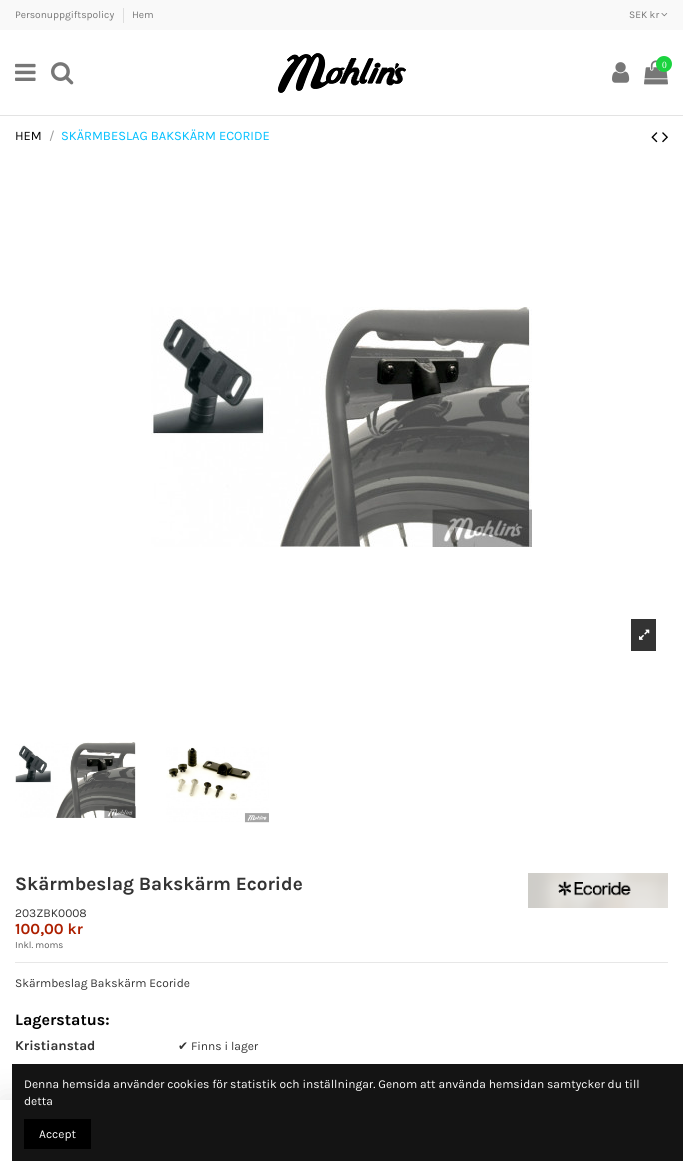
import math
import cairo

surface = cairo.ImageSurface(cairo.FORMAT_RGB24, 683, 1173)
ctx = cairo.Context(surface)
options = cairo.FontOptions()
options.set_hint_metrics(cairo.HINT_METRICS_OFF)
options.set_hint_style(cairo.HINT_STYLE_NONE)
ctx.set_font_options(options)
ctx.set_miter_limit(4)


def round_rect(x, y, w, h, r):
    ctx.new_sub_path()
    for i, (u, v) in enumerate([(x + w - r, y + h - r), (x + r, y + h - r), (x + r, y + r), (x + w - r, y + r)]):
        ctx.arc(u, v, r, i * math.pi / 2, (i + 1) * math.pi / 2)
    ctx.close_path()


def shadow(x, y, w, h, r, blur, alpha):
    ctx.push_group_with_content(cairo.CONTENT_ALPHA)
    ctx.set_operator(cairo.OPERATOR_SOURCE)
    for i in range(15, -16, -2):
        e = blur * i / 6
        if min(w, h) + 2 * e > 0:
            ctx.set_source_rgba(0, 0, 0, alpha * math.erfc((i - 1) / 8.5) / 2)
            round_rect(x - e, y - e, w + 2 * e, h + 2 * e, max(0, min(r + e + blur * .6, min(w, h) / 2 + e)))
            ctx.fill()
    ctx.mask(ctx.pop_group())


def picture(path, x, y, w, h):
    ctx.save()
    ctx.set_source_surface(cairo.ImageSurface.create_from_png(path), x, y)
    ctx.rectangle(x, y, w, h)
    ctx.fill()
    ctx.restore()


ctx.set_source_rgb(1, 1, 1)
ctx.paint()
ctx.set_source_rgb(0.973, 0.973, 0.973)
ctx.rectangle(0, 0, 683, 30)
ctx.fill()
ctx.select_font_face("Karla")
ctx.set_font_size(10.25)
ctx.set_source_rgb(0.467, 0.467, 0.467)
ctx.move_to(15, 18)
ctx.show_text("Personuppgiftspolicy")
ctx.set_source_rgb(0.871, 0.871, 0.871)
ctx.rectangle(123, 8, 1, 15)
ctx.fill()
ctx.set_source_rgb(0.467, 0.467, 0.467)
ctx.move_to(132, 18)
ctx.show_text("Hem")
ctx.move_to(629, 18)
ctx.show_text("SEK kr")
picture("img1.png", 661, 13, 7, 4)
ctx.set_source_rgb(0.89, 0.89, 0.89)
ctx.rectangle(0, 115, 683, 1)
ctx.fill()
picture("img2.png", 15, 63, 21, 18)
picture("img3.png", 51, 62, 23, 23)
picture("img4.png", 278, 53, 128, 40)
picture("img5.png", 612, 62, 18, 21)
picture("img6.png", 644, 60, 24, 25)
ctx.set_source_rgb(0.106, 0.827, 0.247)
ctx.arc(664, 64, 8, 0, 2 * math.pi)
ctx.fill()
ctx.select_font_face("Liberation Serif")
ctx.set_font_size(9.5)
ctx.set_source_rgb(1, 1, 1)
ctx.move_to(662, 68)
ctx.show_text("0")
ctx.select_font_face("Karla")
ctx.set_font_size(12.9)
ctx.set_source_rgb(0, 0, 0)
ctx.move_to(15, 140)
ctx.show_text("HEM")
ctx.set_source_rgb(0.6, 0.6, 0.6)
ctx.move_to(49, 140)
ctx.show_text("/")
ctx.set_source_rgb(0, 0.749, 1)
ctx.move_to(61, 140)
ctx.show_text("SKÄRMBESLAG BAKSKÄRM ECORIDE")
picture("img7.png", 651, 132, 7, 11)
picture("img8.png", 662, 132, 6, 11)
picture("img9.png", 151, 307, 381, 240)
ctx.set_source_rgb(0.2, 0.2, 0.2)
ctx.rectangle(631, 619, 25, 32)
ctx.fill()
picture("img10.png", 639, 629, 11, 11)
picture("img11.png", 15, 742, 121, 76)
picture("img12.png", 166, 747, 103, 76)
ctx.set_source_rgb(0.906, 0.906, 0.906)
ctx.rectangle(15, 962, 653, 1)
ctx.fill()
ctx.select_font_face("Karla", cairo.FONT_SLANT_NORMAL, cairo.FONT_WEIGHT_BOLD)
ctx.set_font_size(18.9)
ctx.set_source_rgb(0.2, 0.2, 0.2)
ctx.move_to(15, 890)
ctx.show_text("Skärmbeslag Bakskärm Ecoride")
picture("img13.png", 528, 873, 140, 35)
ctx.select_font_face("Karla")
ctx.set_font_size(12)
ctx.move_to(15, 917)
ctx.show_text("203ZBK0008")
ctx.select_font_face("Karla", cairo.FONT_SLANT_NORMAL, cairo.FONT_WEIGHT_BOLD)
ctx.set_font_size(15.5)
ctx.set_source_rgb(0.678, 0.122, 0)
ctx.move_to(15, 934)
ctx.show_text("100,00 kr")
ctx.select_font_face("Karla")
ctx.set_font_size(9.5)
ctx.set_source_rgb(0.361, 0.361, 0.361)
ctx.move_to(15, 948)
ctx.show_text("Inkl. moms")
ctx.set_font_size(12)
ctx.set_source_rgb(0.2, 0.2, 0.2)
ctx.move_to(15, 987)
ctx.show_text("Skärmbeslag Bakskärm Ecoride")
ctx.select_font_face("Karla", cairo.FONT_SLANT_NORMAL, cairo.FONT_WEIGHT_BOLD)
ctx.set_font_size(16)
ctx.set_source_rgb(0, 0, 0)
ctx.move_to(15, 1025)
ctx.show_text("Lagerstatus:")
ctx.set_font_size(13.5)
ctx.set_source_rgb(0.2, 0.2, 0.2)
ctx.move_to(15, 1050)
ctx.show_text("Kristianstad")
ctx.select_font_face("DejaVu Sans")
ctx.set_font_size(12)
ctx.move_to(178, 1050)
ctx.show_text("✔")
ctx.select_font_face("Karla")
ctx.move_to(191, 1050)
ctx.show_text("Finns i lager")
ctx.set_source_rgb(0, 0, 0)
shadow(0, 1096, 683, 73, 0, 15, 0.09)
ctx.set_source_rgb(1, 1, 1)
ctx.rectangle(0, 1100, 683, 73)
ctx.fill()
ctx.set_source_rgb(0.082, 0.082, 0.082)
ctx.rectangle(12, 1064, 671, 97)
ctx.fill()
ctx.set_source_rgb(1, 1, 1)
ctx.move_to(24, 1088)
ctx.show_text("Denna hemsida använder cookies för statistik och inställningar. Genom att använda hemsidan samtycker du till")
ctx.move_to(24, 1105)
ctx.show_text("detta")
ctx.set_source_rgb(0, 0, 0)
ctx.rectangle(24, 1119, 67, 30)
ctx.fill()
ctx.set_source_rgb(1, 1, 1)
ctx.move_to(39, 1138)
ctx.show_text("Accept")
surface.write_to_png("page.png")
